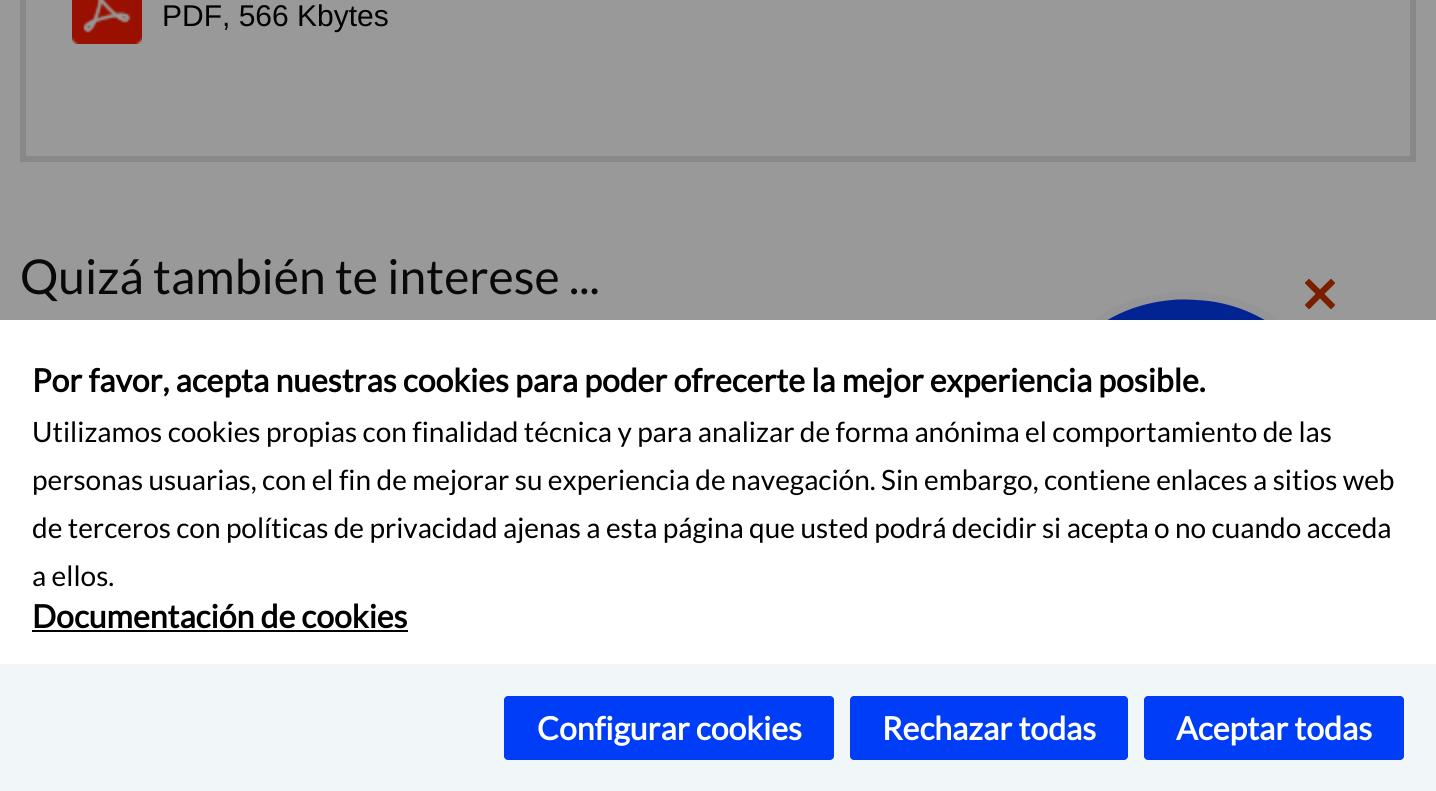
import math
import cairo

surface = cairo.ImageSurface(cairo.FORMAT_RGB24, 1436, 791)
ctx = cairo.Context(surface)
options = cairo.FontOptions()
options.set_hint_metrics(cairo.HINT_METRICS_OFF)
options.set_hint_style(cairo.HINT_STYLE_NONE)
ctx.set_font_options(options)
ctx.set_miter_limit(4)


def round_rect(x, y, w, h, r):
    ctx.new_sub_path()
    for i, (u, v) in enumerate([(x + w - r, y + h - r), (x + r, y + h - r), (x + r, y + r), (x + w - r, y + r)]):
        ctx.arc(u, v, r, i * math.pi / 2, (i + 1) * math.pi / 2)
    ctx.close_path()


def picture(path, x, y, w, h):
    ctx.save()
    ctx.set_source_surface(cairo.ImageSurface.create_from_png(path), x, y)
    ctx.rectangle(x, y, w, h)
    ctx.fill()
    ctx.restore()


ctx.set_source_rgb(0.6, 0.6, 0.6)
ctx.paint()
ctx.rectangle(23, -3, 1390, 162)
ctx.set_source_rgb(0.533, 0.533, 0.533)
ctx.set_line_width(6)
ctx.stroke()
picture("img1.png", 72, 0, 70, 44)
ctx.select_font_face("Liberation Sans")
ctx.set_font_size(30)
ctx.set_source_rgb(0, 0, 0)
ctx.move_to(162, 26)
ctx.show_text("PDF, 566 Kbytes")
ctx.select_font_face("Lato")
ctx.set_font_size(48)
ctx.set_source_rgb(0.039, 0.039, 0.039)
ctx.move_to(20, 294)
ctx.show_text("Quizá también te interese ...")
picture("img2.png", 1093, 292, 186, 28)
picture("img3.png", 1305, 279, 30, 30)
ctx.set_source_rgb(1, 1, 1)
ctx.rectangle(0, 320, 1436, 344)
ctx.fill()
ctx.select_font_face("Lato", cairo.FONT_SLANT_NORMAL, cairo.FONT_WEIGHT_BOLD)
ctx.set_font_size(32)
ctx.set_source_rgb(0, 0, 0)
ctx.move_to(32, 392)
ctx.show_text("Por favor, acepta nuestras cookies para poder ofrecerte la mejor experiencia posible.")
ctx.select_font_face("Lato")
ctx.set_font_size(28)
ctx.move_to(32, 442)
ctx.show_text("Utilizamos cookies propias con finalidad técnica y para analizar de forma anónima el comportamiento de las")
ctx.move_to(32, 490)
ctx.show_text("personas usuarias, con el fin de mejorar su experiencia de navegación. Sin embargo, contiene enlaces a sitios web")
ctx.move_to(32, 538)
ctx.show_text("de terceros con políticas de privacidad ajenas a esta página que usted podrá decidir si acepta o no cuando acceda")
ctx.move_to(32, 586)
ctx.show_text("a ellos.")
ctx.select_font_face("Lato", cairo.FONT_SLANT_NORMAL, cairo.FONT_WEIGHT_BOLD)
ctx.set_font_size(32)
ctx.move_to(32, 628)
ctx.show_text("Documentación de cookies")
ctx.rectangle(32, 630, 376, 2)
ctx.fill()
ctx.set_source_rgb(0.945, 0.961, 0.976)
ctx.rectangle(0, 664, 1436, 127)
ctx.fill()
ctx.set_source_rgb(0, 0.239, 0.965)
round_rect(504, 696, 330, 64, 4)
ctx.fill()
ctx.set_source_rgb(1, 1, 1)
ctx.move_to(537, 740)
ctx.show_text("Configurar cookies")
ctx.set_source_rgb(0, 0.239, 0.965)
round_rect(850, 696, 278, 64, 4)
ctx.fill()
ctx.set_source_rgb(1, 1, 1)
ctx.move_to(882, 740)
ctx.show_text("Rechazar todas")
ctx.set_source_rgb(0, 0.239, 0.965)
round_rect(1144, 696, 260, 64, 4)
ctx.fill()
ctx.set_source_rgb(1, 1, 1)
ctx.move_to(1176, 740)
ctx.show_text("Aceptar todas")
surface.write_to_png("page.png")
